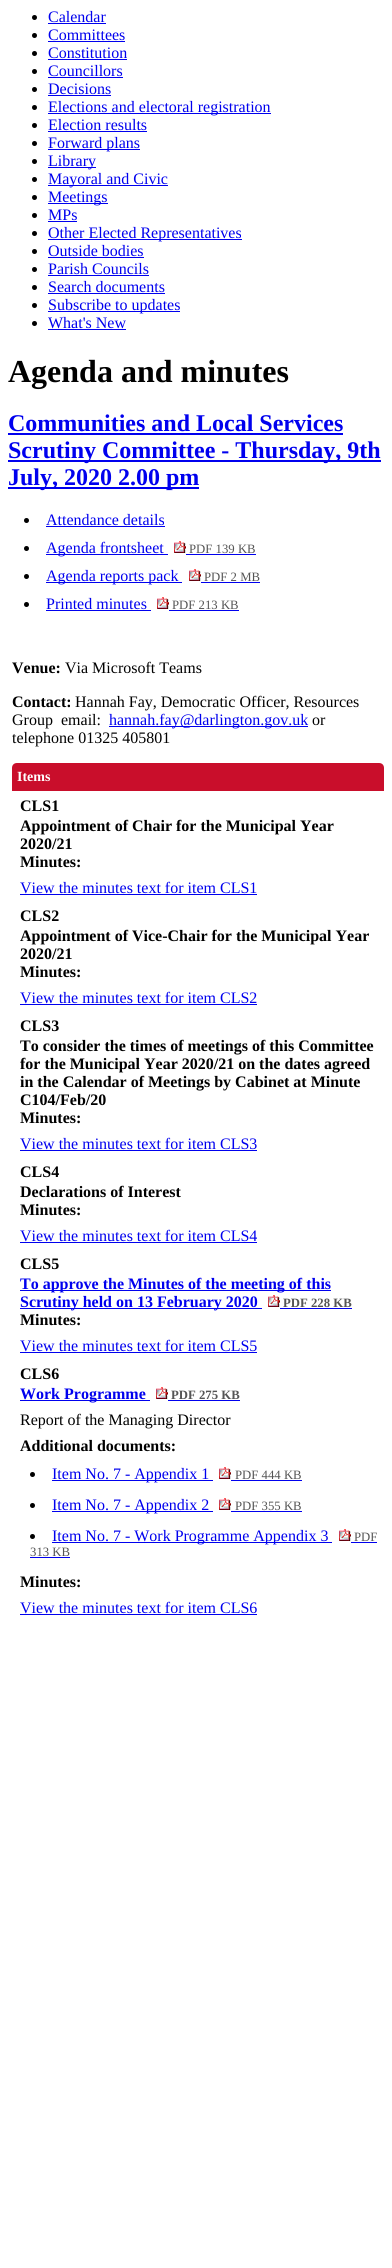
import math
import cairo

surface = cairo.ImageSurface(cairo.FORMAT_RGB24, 392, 2268)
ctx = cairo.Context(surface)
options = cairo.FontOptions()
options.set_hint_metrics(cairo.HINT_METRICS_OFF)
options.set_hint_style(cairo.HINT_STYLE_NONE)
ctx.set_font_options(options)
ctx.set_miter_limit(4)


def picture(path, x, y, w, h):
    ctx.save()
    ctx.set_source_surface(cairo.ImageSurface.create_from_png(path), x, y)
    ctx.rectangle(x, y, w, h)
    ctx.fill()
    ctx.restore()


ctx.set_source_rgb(1, 1, 1)
ctx.paint()
ctx.set_source_rgb(0, 0, 0)
ctx.arc(34.5, 17.5, 2.5, 0, 2 * math.pi)
ctx.fill()
ctx.select_font_face("Liberation Serif")
ctx.set_font_size(16)
ctx.set_source_rgb(0, 0, 0.933)
ctx.move_to(48, 22)
ctx.show_text("Calendar")
ctx.rectangle(48, 23, 58, 1)
ctx.fill()
ctx.set_source_rgb(0, 0, 0)
ctx.arc(34.5, 35.5, 2.5, 0, 2 * math.pi)
ctx.fill()
ctx.set_source_rgb(0, 0, 0.933)
ctx.move_to(48, 40)
ctx.show_text("Committees")
ctx.rectangle(48, 41, 77, 1)
ctx.fill()
ctx.set_source_rgb(0, 0, 0)
ctx.arc(34.5, 53.5, 2.5, 0, 2 * math.pi)
ctx.fill()
ctx.set_source_rgb(0, 0, 0.933)
ctx.move_to(48, 58)
ctx.show_text("Constitution")
ctx.rectangle(48, 59, 79, 1)
ctx.fill()
ctx.set_source_rgb(0, 0, 0)
ctx.arc(34.5, 71.5, 2.5, 0, 2 * math.pi)
ctx.fill()
ctx.set_source_rgb(0, 0, 0.933)
ctx.move_to(48, 76)
ctx.show_text("Councillors")
ctx.rectangle(48, 77, 75, 1)
ctx.fill()
ctx.set_source_rgb(0, 0, 0)
ctx.arc(34.5, 89.5, 2.5, 0, 2 * math.pi)
ctx.fill()
ctx.set_source_rgb(0, 0, 0.933)
ctx.move_to(48, 94)
ctx.show_text("Decisions")
ctx.rectangle(48, 95, 63, 1)
ctx.fill()
ctx.set_source_rgb(0, 0, 0)
ctx.arc(34.5, 107.5, 2.5, 0, 2 * math.pi)
ctx.fill()
ctx.set_source_rgb(0, 0, 0.933)
ctx.rectangle(48, 113, 223, 1)
ctx.fill()
ctx.move_to(48, 112)
ctx.show_text("Elections and electoral registration")
ctx.set_source_rgb(0, 0, 0)
ctx.new_path()
ctx.arc(34.5, 125.5, 2.5, 0, 2 * math.pi)
ctx.fill()
ctx.set_source_rgb(0, 0, 0.933)
ctx.move_to(48, 130)
ctx.show_text("Election results")
ctx.rectangle(48, 131, 99, 1)
ctx.fill()
ctx.set_source_rgb(0, 0, 0)
ctx.arc(34.5, 143.5, 2.5, 0, 2 * math.pi)
ctx.fill()
ctx.set_source_rgb(0, 0, 0.933)
ctx.rectangle(48, 149, 92, 1)
ctx.fill()
ctx.move_to(48, 148)
ctx.show_text("Forward plans")
ctx.set_source_rgb(0, 0, 0)
ctx.new_path()
ctx.arc(34.5, 161.5, 2.5, 0, 2 * math.pi)
ctx.fill()
ctx.set_source_rgb(0, 0, 0.933)
ctx.rectangle(48, 167, 48, 1)
ctx.fill()
ctx.move_to(48, 166)
ctx.show_text("Library")
ctx.set_source_rgb(0, 0, 0)
ctx.new_path()
ctx.arc(34.5, 179.5, 2.5, 0, 2 * math.pi)
ctx.fill()
ctx.set_source_rgb(0, 0, 0.933)
ctx.rectangle(48, 185, 120, 1)
ctx.fill()
ctx.move_to(48, 184)
ctx.show_text("Mayoral and Civic")
ctx.set_source_rgb(0, 0, 0)
ctx.new_path()
ctx.arc(34.5, 197.5, 2.5, 0, 2 * math.pi)
ctx.fill()
ctx.set_source_rgb(0, 0, 0.933)
ctx.rectangle(48, 203, 60, 1)
ctx.fill()
ctx.move_to(48, 202)
ctx.show_text("Meetings")
ctx.set_source_rgb(0, 0, 0)
ctx.new_path()
ctx.arc(34.5, 215.5, 2.5, 0, 2 * math.pi)
ctx.fill()
ctx.set_source_rgb(0, 0, 0.933)
ctx.move_to(48, 220)
ctx.show_text("MPs")
ctx.rectangle(48, 221, 29, 1)
ctx.fill()
ctx.set_source_rgb(0, 0, 0)
ctx.arc(34.5, 233.5, 2.5, 0, 2 * math.pi)
ctx.fill()
ctx.set_source_rgb(0, 0, 0.933)
ctx.rectangle(48, 239, 194, 1)
ctx.fill()
ctx.move_to(48, 238)
ctx.show_text("Other Elected Representatives")
ctx.set_source_rgb(0, 0, 0)
ctx.new_path()
ctx.arc(34.5, 251.5, 2.5, 0, 2 * math.pi)
ctx.fill()
ctx.set_source_rgb(0, 0, 0.933)
ctx.move_to(48, 256)
ctx.show_text("Outside bodies")
ctx.rectangle(48, 257, 96, 1)
ctx.fill()
ctx.set_source_rgb(0, 0, 0)
ctx.arc(34.5, 269.5, 2.5, 0, 2 * math.pi)
ctx.fill()
ctx.set_source_rgb(0, 0, 0.933)
ctx.move_to(48, 274)
ctx.show_text("Parish Councils")
ctx.rectangle(48, 275, 101, 1)
ctx.fill()
ctx.set_source_rgb(0, 0, 0)
ctx.arc(34.5, 287.5, 2.5, 0, 2 * math.pi)
ctx.fill()
ctx.set_source_rgb(0, 0, 0.933)
ctx.move_to(48, 292)
ctx.show_text("Search documents")
ctx.rectangle(48, 293, 117, 1)
ctx.fill()
ctx.set_source_rgb(0, 0, 0)
ctx.arc(34.5, 305.5, 2.5, 0, 2 * math.pi)
ctx.fill()
ctx.set_source_rgb(0, 0, 0.933)
ctx.rectangle(48, 311, 132, 1)
ctx.fill()
ctx.move_to(48, 310)
ctx.show_text("Subscribe to updates")
ctx.set_source_rgb(0, 0, 0)
ctx.new_path()
ctx.arc(34.5, 323.5, 2.5, 0, 2 * math.pi)
ctx.fill()
ctx.set_source_rgb(0, 0, 0.933)
ctx.move_to(48, 328)
ctx.show_text("What's New")
ctx.rectangle(48, 329, 78, 1)
ctx.fill()
ctx.select_font_face("Liberation Serif", cairo.FONT_SLANT_NORMAL, cairo.FONT_WEIGHT_BOLD)
ctx.set_font_size(32)
ctx.set_source_rgb(0, 0, 0)
ctx.move_to(8, 382)
ctx.show_text("Agenda and minutes")
ctx.set_font_size(24)
ctx.set_source_rgb(0, 0, 0.933)
ctx.move_to(8, 431)
ctx.show_text("Communities and Local Services")
ctx.rectangle(8, 433, 335, 2)
ctx.fill()
ctx.rectangle(8, 460, 373, 2)
ctx.fill()
ctx.move_to(8, 458)
ctx.show_text("Scrutiny Committee - Thursday, 9th")
ctx.rectangle(8, 487, 191, 2)
ctx.fill()
ctx.move_to(8, 485)
ctx.show_text("July, 2020 2.00 pm")
ctx.set_source_rgb(0, 0, 0)
ctx.new_path()
ctx.arc(26.5, 520.5, 2.5, 0, 2 * math.pi)
ctx.fill()
ctx.select_font_face("Liberation Serif")
ctx.set_font_size(16)
ctx.set_source_rgb(0, 0, 0.933)
ctx.move_to(46, 525)
ctx.show_text("Attendance details")
ctx.rectangle(46, 526, 119, 1)
ctx.fill()
ctx.set_source_rgb(0, 0, 0)
ctx.arc(26.5, 548.5, 2.5, 0, 2 * math.pi)
ctx.fill()
ctx.set_source_rgb(0, 0, 0.933)
ctx.rectangle(46, 554, 122, 1)
ctx.fill()
ctx.move_to(46, 553)
ctx.show_text("Agenda frontsheet")
picture("img1.png", 174, 541, 12, 12)
ctx.set_font_size(12.75)
ctx.set_source_rgb(0.333, 0.333, 0.333)
ctx.move_to(189, 553)
ctx.show_text("PDF 139 KB")
ctx.set_source_rgb(0, 0, 0.933)
ctx.rectangle(186, 554, 70, 1)
ctx.fill()
ctx.set_source_rgb(0, 0, 0)
ctx.arc(26.5, 576.5, 2.5, 0, 2 * math.pi)
ctx.fill()
ctx.set_source_rgb(0, 0, 0.933)
ctx.rectangle(46, 582, 136, 1)
ctx.fill()
ctx.set_font_size(16)
ctx.move_to(46, 581)
ctx.show_text("Agenda reports pack")
picture("img1.png", 189, 569, 12, 12)
ctx.set_font_size(12.75)
ctx.set_source_rgb(0.333, 0.333, 0.333)
ctx.move_to(204, 581)
ctx.show_text("PDF 2 MB")
ctx.set_source_rgb(0, 0, 0.933)
ctx.rectangle(201, 582, 59, 1)
ctx.fill()
ctx.set_source_rgb(0, 0, 0)
ctx.arc(26.5, 604.5, 2.5, 0, 2 * math.pi)
ctx.fill()
ctx.set_font_size(16)
ctx.set_source_rgb(0, 0, 0.933)
ctx.move_to(46, 609)
ctx.show_text("Printed minutes")
ctx.rectangle(46, 610, 105, 1)
ctx.fill()
picture("img1.png", 157, 597, 12, 12)
ctx.set_font_size(12.75)
ctx.set_source_rgb(0.333, 0.333, 0.333)
ctx.move_to(172, 609)
ctx.show_text("PDF 213 KB")
ctx.set_source_rgb(0, 0, 0.933)
ctx.rectangle(169, 610, 70, 1)
ctx.fill()
ctx.select_font_face("Liberation Serif", cairo.FONT_SLANT_NORMAL, cairo.FONT_WEIGHT_BOLD)
ctx.set_font_size(16)
ctx.set_source_rgb(0, 0, 0)
ctx.move_to(12, 673)
ctx.show_text("Venue:")
ctx.select_font_face("Liberation Serif")
ctx.move_to(65, 673)
ctx.show_text("Via Microsoft Teams")
ctx.select_font_face("Liberation Serif", cairo.FONT_SLANT_NORMAL, cairo.FONT_WEIGHT_BOLD)
ctx.move_to(12, 707)
ctx.show_text("Contact:")
ctx.select_font_face("Liberation Serif")
ctx.move_to(75, 707)
ctx.show_text("Hannah Fay, Democratic Officer, Resources")
ctx.move_to(12, 725)
ctx.show_text("Group")
ctx.move_to(61, 725)
ctx.show_text("email:")
ctx.set_source_rgb(0, 0, 0.933)
ctx.rectangle(109, 726, 199, 1)
ctx.fill()
ctx.move_to(109, 725)
ctx.show_text("hannah.fay@darlington.gov.uk")
ctx.set_source_rgb(0, 0, 0)
ctx.move_to(312, 725)
ctx.show_text("or")
ctx.move_to(12, 743)
ctx.show_text("telephone 01325 405801")
ctx.set_source_rgb(0.788, 0.055, 0.169)
ctx.new_path()
ctx.move_to(17, 763)
ctx.line_to(379, 763)
ctx.curve_to(382, 763, 384, 765, 384, 768)
ctx.line_to(384, 791)
ctx.line_to(12, 791)
ctx.line_to(12, 768)
ctx.curve_to(12, 765, 14, 763, 17, 763)
ctx.close_path()
ctx.fill()
ctx.select_font_face("Liberation Serif", cairo.FONT_SLANT_NORMAL, cairo.FONT_WEIGHT_BOLD)
ctx.set_font_size(14)
ctx.set_source_rgb(1, 1, 1)
ctx.move_to(17, 781)
ctx.show_text("Items")
ctx.set_font_size(16)
ctx.set_source_rgb(0, 0, 0)
ctx.move_to(20, 811)
ctx.show_text("CLS1")
ctx.move_to(20, 831)
ctx.show_text("Appointment of Chair for the Municipal Year")
ctx.move_to(20, 849)
ctx.show_text("2020/21")
ctx.move_to(20, 867)
ctx.show_text("Minutes:")
ctx.select_font_face("Liberation Serif")
ctx.set_source_rgb(0, 0, 0.933)
ctx.move_to(20, 893)
ctx.show_text("View the minutes text for item CLS1")
ctx.rectangle(20, 894, 237, 1)
ctx.fill()
ctx.select_font_face("Liberation Serif", cairo.FONT_SLANT_NORMAL, cairo.FONT_WEIGHT_BOLD)
ctx.set_source_rgb(0, 0, 0)
ctx.move_to(20, 921)
ctx.show_text("CLS2")
ctx.move_to(20, 941)
ctx.show_text("Appointment of Vice-Chair for the Municipal Year")
ctx.move_to(20, 959)
ctx.show_text("2020/21")
ctx.move_to(20, 977)
ctx.show_text("Minutes:")
ctx.select_font_face("Liberation Serif")
ctx.set_source_rgb(0, 0, 0.933)
ctx.move_to(20, 1003)
ctx.show_text("View the minutes text for item CLS2")
ctx.rectangle(20, 1004, 237, 1)
ctx.fill()
ctx.select_font_face("Liberation Serif", cairo.FONT_SLANT_NORMAL, cairo.FONT_WEIGHT_BOLD)
ctx.set_source_rgb(0, 0, 0)
ctx.move_to(20, 1031)
ctx.show_text("CLS3")
ctx.move_to(20, 1051)
ctx.show_text("To consider the times of meetings of this Committee")
ctx.move_to(20, 1069)
ctx.show_text("for the Municipal Year 2020/21 on the dates agreed")
ctx.move_to(20, 1087)
ctx.show_text("in the Calendar of Meetings by Cabinet at Minute")
ctx.move_to(20, 1105)
ctx.show_text("C104/Feb/20")
ctx.move_to(20, 1123)
ctx.show_text("Minutes:")
ctx.select_font_face("Liberation Serif")
ctx.set_source_rgb(0, 0, 0.933)
ctx.move_to(20, 1149)
ctx.show_text("View the minutes text for item CLS3")
ctx.rectangle(20, 1150, 237, 1)
ctx.fill()
ctx.select_font_face("Liberation Serif", cairo.FONT_SLANT_NORMAL, cairo.FONT_WEIGHT_BOLD)
ctx.set_source_rgb(0, 0, 0)
ctx.move_to(20, 1177)
ctx.show_text("CLS4")
ctx.move_to(20, 1197)
ctx.show_text("Declarations of Interest")
ctx.move_to(20, 1215)
ctx.show_text("Minutes:")
ctx.select_font_face("Liberation Serif")
ctx.set_source_rgb(0, 0, 0.933)
ctx.move_to(20, 1241)
ctx.show_text("View the minutes text for item CLS4")
ctx.rectangle(20, 1242, 237, 1)
ctx.fill()
ctx.select_font_face("Liberation Serif", cairo.FONT_SLANT_NORMAL, cairo.FONT_WEIGHT_BOLD)
ctx.set_source_rgb(0, 0, 0)
ctx.move_to(20, 1269)
ctx.show_text("CLS5")
ctx.set_source_rgb(0, 0, 0.933)
ctx.rectangle(20, 1290, 311, 1)
ctx.fill()
ctx.move_to(20, 1289)
ctx.show_text("To approve the Minutes of the meeting of this")
ctx.rectangle(20, 1308, 242, 1)
ctx.fill()
ctx.move_to(20, 1307)
ctx.show_text("Scrutiny held on 13 February 2020")
picture("img1.png", 268, 1295, 12, 12)
ctx.set_font_size(12.75)
ctx.set_source_rgb(0.333, 0.333, 0.333)
ctx.move_to(283, 1307)
ctx.show_text("PDF 228 KB")
ctx.set_source_rgb(0, 0, 0.933)
ctx.rectangle(280, 1308, 72, 1)
ctx.fill()
ctx.set_font_size(16)
ctx.set_source_rgb(0, 0, 0)
ctx.move_to(20, 1325)
ctx.show_text("Minutes:")
ctx.select_font_face("Liberation Serif")
ctx.set_source_rgb(0, 0, 0.933)
ctx.move_to(20, 1351)
ctx.show_text("View the minutes text for item CLS5")
ctx.rectangle(20, 1352, 237, 1)
ctx.fill()
ctx.select_font_face("Liberation Serif", cairo.FONT_SLANT_NORMAL, cairo.FONT_WEIGHT_BOLD)
ctx.set_source_rgb(0, 0, 0)
ctx.move_to(20, 1379)
ctx.show_text("CLS6")
ctx.set_source_rgb(0, 0, 0.933)
ctx.rectangle(20, 1400, 130, 1)
ctx.fill()
ctx.move_to(20, 1399)
ctx.show_text("Work Programme")
picture("img1.png", 156, 1387, 12, 12)
ctx.set_font_size(12.75)
ctx.set_source_rgb(0.333, 0.333, 0.333)
ctx.move_to(171, 1399)
ctx.show_text("PDF 275 KB")
ctx.set_source_rgb(0, 0, 0.933)
ctx.rectangle(168, 1400, 72, 1)
ctx.fill()
ctx.select_font_face("Liberation Serif")
ctx.set_font_size(16)
ctx.set_source_rgb(0, 0, 0)
ctx.move_to(20, 1425)
ctx.show_text("Report of the Managing Director")
ctx.select_font_face("Liberation Serif", cairo.FONT_SLANT_NORMAL, cairo.FONT_WEIGHT_BOLD)
ctx.move_to(20, 1451)
ctx.show_text("Additional documents:")
ctx.new_path()
ctx.arc(32.5, 1474.5, 2.5, 0, 2 * math.pi)
ctx.fill()
ctx.set_source_rgb(0, 0, 0.933)
ctx.rectangle(52, 1480, 161, 1)
ctx.fill()
ctx.select_font_face("Liberation Serif")
ctx.move_to(52, 1479)
ctx.show_text("Item No. 7 - Appendix 1")
picture("img1.png", 219, 1467, 12, 12)
ctx.set_font_size(12.75)
ctx.set_source_rgb(0.333, 0.333, 0.333)
ctx.move_to(235, 1479)
ctx.show_text("PDF 444 KB")
ctx.set_source_rgb(0, 0, 0.933)
ctx.rectangle(231, 1480, 71, 1)
ctx.fill()
ctx.set_source_rgb(0, 0, 0)
ctx.arc(32.5, 1505.5, 2.5, 0, 2 * math.pi)
ctx.fill()
ctx.set_source_rgb(0, 0, 0.933)
ctx.rectangle(52, 1511, 161, 1)
ctx.fill()
ctx.set_font_size(16)
ctx.move_to(52, 1510)
ctx.show_text("Item No. 7 - Appendix 2")
picture("img1.png", 219, 1498, 12, 12)
ctx.set_font_size(12.75)
ctx.set_source_rgb(0.333, 0.333, 0.333)
ctx.move_to(235, 1510)
ctx.show_text("PDF 355 KB")
ctx.set_source_rgb(0, 0, 0.933)
ctx.rectangle(231, 1511, 71, 1)
ctx.fill()
ctx.set_source_rgb(0, 0, 0)
ctx.arc(32.5, 1536.5, 2.5, 0, 2 * math.pi)
ctx.fill()
ctx.set_source_rgb(0, 0, 0.933)
ctx.rectangle(52, 1542, 280, 1)
ctx.fill()
ctx.set_font_size(16)
ctx.move_to(52, 1541)
ctx.show_text("Item No. 7 - Work Programme Appendix 3")
picture("img1.png", 339, 1529, 12, 12)
ctx.set_font_size(12.75)
ctx.set_source_rgb(0.333, 0.333, 0.333)
ctx.move_to(354, 1541)
ctx.show_text("PDF")
ctx.set_source_rgb(0, 0, 0.933)
ctx.rectangle(351, 1542, 26, 1)
ctx.fill()
ctx.set_source_rgb(0.333, 0.333, 0.333)
ctx.move_to(30, 1556)
ctx.show_text("313 KB")
ctx.set_source_rgb(0, 0, 0.933)
ctx.rectangle(30, 1557, 40, 1)
ctx.fill()
ctx.select_font_face("Liberation Serif", cairo.FONT_SLANT_NORMAL, cairo.FONT_WEIGHT_BOLD)
ctx.set_font_size(16)
ctx.set_source_rgb(0, 0, 0)
ctx.move_to(20, 1587)
ctx.show_text("Minutes:")
ctx.select_font_face("Liberation Serif")
ctx.set_source_rgb(0, 0, 0.933)
ctx.move_to(20, 1613)
ctx.show_text("View the minutes text for item CLS6")
ctx.rectangle(20, 1614, 237, 1)
ctx.fill()
surface.write_to_png("page.png")
